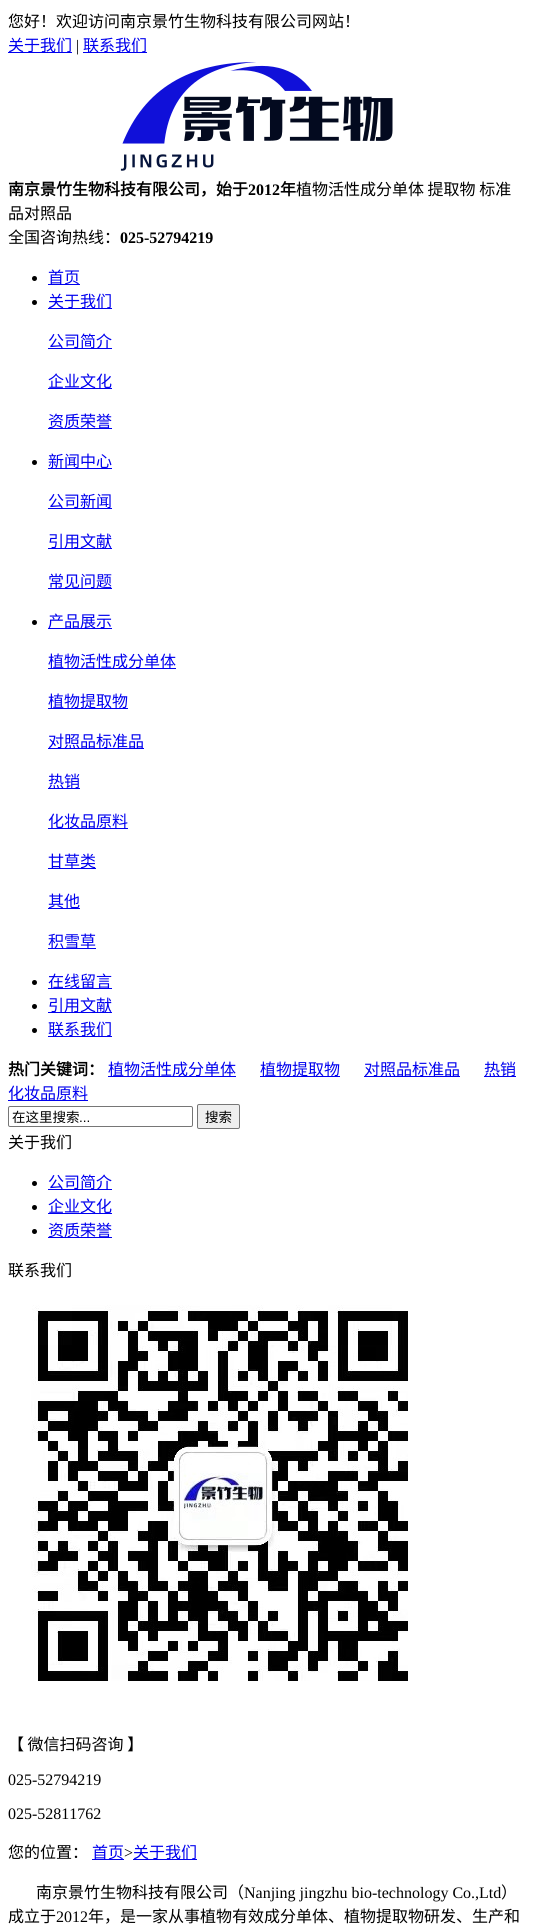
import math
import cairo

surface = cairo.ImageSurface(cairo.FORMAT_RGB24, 535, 1925)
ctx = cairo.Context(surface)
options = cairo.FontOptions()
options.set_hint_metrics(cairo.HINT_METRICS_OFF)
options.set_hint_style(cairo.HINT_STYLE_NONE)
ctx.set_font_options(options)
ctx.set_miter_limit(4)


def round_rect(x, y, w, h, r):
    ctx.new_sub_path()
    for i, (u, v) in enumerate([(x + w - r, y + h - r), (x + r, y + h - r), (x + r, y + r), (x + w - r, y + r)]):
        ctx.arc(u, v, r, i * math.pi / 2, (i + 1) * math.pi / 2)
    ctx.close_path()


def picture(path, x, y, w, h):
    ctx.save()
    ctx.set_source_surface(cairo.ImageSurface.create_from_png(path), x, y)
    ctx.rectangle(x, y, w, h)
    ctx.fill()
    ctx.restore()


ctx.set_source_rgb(1, 1, 1)
ctx.paint()
ctx.select_font_face("Noto Sans CJK SC")
ctx.set_font_size(16)
ctx.set_source_rgb(0, 0, 0)
ctx.move_to(8, 27)
ctx.show_text("您好！欢迎访问南京景竹生物科技有限公司网站！")
ctx.set_source_rgb(0, 0, 0.933)
ctx.rectangle(8, 52, 64, 1)
ctx.fill()
ctx.move_to(8, 51)
ctx.show_text("关于我们")
ctx.select_font_face("Liberation Serif")
ctx.set_source_rgb(0, 0, 0)
ctx.move_to(76, 51)
ctx.show_text("|")
ctx.set_source_rgb(0, 0, 0.933)
ctx.rectangle(83, 52, 64, 1)
ctx.fill()
ctx.select_font_face("Noto Sans CJK SC")
ctx.move_to(83, 51)
ctx.show_text("联系我们")
picture("img1.png", 120, 62, 273, 109)
ctx.select_font_face("Noto Sans CJK SC", cairo.FONT_SLANT_NORMAL, cairo.FONT_WEIGHT_BOLD)
ctx.set_source_rgb(0, 0, 0)
ctx.move_to(8, 195)
ctx.show_text("南京景竹生物科技有限公司，始于")
ctx.select_font_face("Liberation Serif", cairo.FONT_SLANT_NORMAL, cairo.FONT_WEIGHT_BOLD)
ctx.move_to(248, 195)
ctx.show_text("2012")
ctx.select_font_face("Noto Sans CJK SC", cairo.FONT_SLANT_NORMAL, cairo.FONT_WEIGHT_BOLD)
ctx.move_to(280, 195)
ctx.show_text("年")
ctx.select_font_face("Noto Sans CJK SC")
ctx.move_to(296, 195)
ctx.show_text("植物活性成分单体 提取物 标准")
ctx.move_to(8, 219)
ctx.show_text("品对照品")
ctx.move_to(8, 243)
ctx.show_text("全国咨询热线：")
ctx.select_font_face("Liberation Serif", cairo.FONT_SLANT_NORMAL, cairo.FONT_WEIGHT_BOLD)
ctx.move_to(120, 243)
ctx.show_text("025-52794219")
ctx.new_path()
ctx.arc(34.5, 278.5, 2.5, 0, 2 * math.pi)
ctx.fill()
ctx.set_source_rgb(0, 0, 0.933)
ctx.rectangle(48, 284, 32, 1)
ctx.fill()
ctx.select_font_face("Noto Sans CJK SC")
ctx.move_to(48, 283)
ctx.show_text("首页")
ctx.set_source_rgb(0, 0, 0)
ctx.new_path()
ctx.arc(34.5, 302.5, 2.5, 0, 2 * math.pi)
ctx.fill()
ctx.set_source_rgb(0, 0, 0.933)
ctx.rectangle(48, 308, 64, 1)
ctx.fill()
ctx.move_to(48, 307)
ctx.show_text("关于我们")
ctx.rectangle(48, 348, 64, 1)
ctx.fill()
ctx.move_to(48, 347)
ctx.show_text("公司简介")
ctx.rectangle(48, 388, 64, 1)
ctx.fill()
ctx.move_to(48, 387)
ctx.show_text("企业文化")
ctx.rectangle(48, 428, 64, 1)
ctx.fill()
ctx.move_to(48, 427)
ctx.show_text("资质荣誉")
ctx.set_source_rgb(0, 0, 0)
ctx.new_path()
ctx.arc(34.5, 462.5, 2.5, 0, 2 * math.pi)
ctx.fill()
ctx.set_source_rgb(0, 0, 0.933)
ctx.rectangle(48, 468, 64, 1)
ctx.fill()
ctx.move_to(48, 467)
ctx.show_text("新闻中心")
ctx.rectangle(48, 508, 64, 1)
ctx.fill()
ctx.move_to(48, 507)
ctx.show_text("公司新闻")
ctx.rectangle(48, 548, 64, 1)
ctx.fill()
ctx.move_to(48, 547)
ctx.show_text("引用文献")
ctx.rectangle(48, 588, 64, 1)
ctx.fill()
ctx.move_to(48, 587)
ctx.show_text("常见问题")
ctx.set_source_rgb(0, 0, 0)
ctx.new_path()
ctx.arc(34.5, 622.5, 2.5, 0, 2 * math.pi)
ctx.fill()
ctx.set_source_rgb(0, 0, 0.933)
ctx.rectangle(48, 628, 64, 1)
ctx.fill()
ctx.move_to(48, 627)
ctx.show_text("产品展示")
ctx.rectangle(48, 668, 128, 1)
ctx.fill()
ctx.move_to(48, 667)
ctx.show_text("植物活性成分单体")
ctx.rectangle(48, 708, 80, 1)
ctx.fill()
ctx.move_to(48, 707)
ctx.show_text("植物提取物")
ctx.rectangle(48, 748, 96, 1)
ctx.fill()
ctx.move_to(48, 747)
ctx.show_text("对照品标准品")
ctx.rectangle(48, 788, 32, 1)
ctx.fill()
ctx.move_to(48, 787)
ctx.show_text("热销")
ctx.rectangle(48, 828, 80, 1)
ctx.fill()
ctx.move_to(48, 827)
ctx.show_text("化妆品原料")
ctx.rectangle(48, 868, 48, 1)
ctx.fill()
ctx.move_to(48, 867)
ctx.show_text("甘草类")
ctx.rectangle(48, 908, 32, 1)
ctx.fill()
ctx.move_to(48, 907)
ctx.show_text("其他")
ctx.rectangle(48, 948, 48, 1)
ctx.fill()
ctx.move_to(48, 947)
ctx.show_text("积雪草")
ctx.set_source_rgb(0, 0, 0)
ctx.new_path()
ctx.arc(34.5, 982.5, 2.5, 0, 2 * math.pi)
ctx.fill()
ctx.set_source_rgb(0, 0, 0.933)
ctx.rectangle(48, 988, 64, 1)
ctx.fill()
ctx.move_to(48, 987)
ctx.show_text("在线留言")
ctx.set_source_rgb(0, 0, 0)
ctx.new_path()
ctx.arc(34.5, 1006.5, 2.5, 0, 2 * math.pi)
ctx.fill()
ctx.set_source_rgb(0, 0, 0.933)
ctx.rectangle(48, 1012, 64, 1)
ctx.fill()
ctx.move_to(48, 1011)
ctx.show_text("引用文献")
ctx.set_source_rgb(0, 0, 0)
ctx.new_path()
ctx.arc(34.5, 1030.5, 2.5, 0, 2 * math.pi)
ctx.fill()
ctx.set_source_rgb(0, 0, 0.933)
ctx.rectangle(48, 1036, 64, 1)
ctx.fill()
ctx.move_to(48, 1035)
ctx.show_text("联系我们")
ctx.select_font_face("Noto Sans CJK SC", cairo.FONT_SLANT_NORMAL, cairo.FONT_WEIGHT_BOLD)
ctx.set_source_rgb(0, 0, 0)
ctx.move_to(8, 1075)
ctx.show_text("热门关键词：")
ctx.set_source_rgb(0, 0, 0.933)
ctx.rectangle(108, 1076, 128, 1)
ctx.fill()
ctx.select_font_face("Noto Sans CJK SC")
ctx.move_to(108, 1075)
ctx.show_text("植物活性成分单体")
ctx.rectangle(260, 1076, 80, 1)
ctx.fill()
ctx.move_to(260, 1075)
ctx.show_text("植物提取物")
ctx.rectangle(364, 1076, 96, 1)
ctx.fill()
ctx.move_to(364, 1075)
ctx.show_text("对照品标准品")
ctx.rectangle(484, 1076, 32, 1)
ctx.fill()
ctx.move_to(484, 1075)
ctx.show_text("热销")
ctx.rectangle(8, 1100, 80, 1)
ctx.fill()
ctx.move_to(8, 1099)
ctx.show_text("化妆品原料")
round_rect(8.5, 1106.5, 184, 20, 1.5)
ctx.set_source_rgb(0.463, 0.463, 0.463)
ctx.set_line_width(1)
ctx.stroke()
ctx.set_font_size(13.5)
ctx.set_source_rgb(0, 0, 0)
ctx.move_to(12, 1122)
ctx.show_text("在这里搜索")
ctx.select_font_face("Liberation Sans")
ctx.move_to(79, 1122)
ctx.show_text("...")
ctx.set_source_rgb(0.937, 0.937, 0.937)
round_rect(197.5, 1104.5, 42, 24, 1.5)
ctx.fill_preserve()
ctx.set_source_rgb(0.463, 0.463, 0.463)
ctx.stroke()
ctx.select_font_face("Noto Sans CJK SC")
ctx.set_source_rgb(0, 0, 0)
ctx.move_to(205, 1122)
ctx.show_text("搜索")
ctx.set_font_size(16)
ctx.move_to(8, 1148)
ctx.show_text("关于我们")
ctx.new_path()
ctx.arc(34.5, 1183.5, 2.5, 0, 2 * math.pi)
ctx.fill()
ctx.set_source_rgb(0, 0, 0.933)
ctx.rectangle(48, 1189, 64, 1)
ctx.fill()
ctx.move_to(48, 1188)
ctx.show_text("公司简介")
ctx.set_source_rgb(0, 0, 0)
ctx.new_path()
ctx.arc(34.5, 1207.5, 2.5, 0, 2 * math.pi)
ctx.fill()
ctx.set_source_rgb(0, 0, 0.933)
ctx.rectangle(48, 1213, 64, 1)
ctx.fill()
ctx.move_to(48, 1212)
ctx.show_text("企业文化")
ctx.set_source_rgb(0, 0, 0)
ctx.new_path()
ctx.arc(34.5, 1231.5, 2.5, 0, 2 * math.pi)
ctx.fill()
ctx.set_source_rgb(0, 0, 0.933)
ctx.rectangle(48, 1237, 64, 1)
ctx.fill()
ctx.move_to(48, 1236)
ctx.show_text("资质荣誉")
ctx.set_source_rgb(0, 0, 0)
ctx.move_to(8, 1276)
ctx.show_text("联系我们")
picture("img2.png", 31, 1305, 377, 376)
ctx.move_to(8, 1750)
ctx.show_text("【 微信扫码咨询 】")
ctx.select_font_face("Liberation Serif")
ctx.move_to(8, 1785)
ctx.show_text("025-52794219")
ctx.move_to(8, 1819)
ctx.show_text("025-52811762")
ctx.select_font_face("Noto Sans CJK SC")
ctx.move_to(8, 1858)
ctx.show_text("您的位置：")
ctx.set_source_rgb(0, 0, 0.933)
ctx.rectangle(92, 1859, 32, 1)
ctx.fill()
ctx.move_to(92, 1858)
ctx.show_text("首页")
ctx.select_font_face("Liberation Serif")
ctx.set_source_rgb(0, 0, 0)
ctx.move_to(124, 1858)
ctx.show_text(">")
ctx.set_source_rgb(0, 0, 0.933)
ctx.rectangle(133, 1859, 64, 1)
ctx.fill()
ctx.select_font_face("Noto Sans CJK SC")
ctx.move_to(133, 1858)
ctx.show_text("关于我们")
ctx.set_source_rgb(0, 0, 0)
ctx.move_to(36, 1898)
ctx.show_text("南京景竹生物科技有限公司（")
ctx.select_font_face("Liberation Serif")
ctx.move_to(244, 1898)
ctx.show_text("Nanjing jingzhu bio-technology Co.,Ltd")
ctx.select_font_face("Noto Sans CJK SC")
ctx.move_to(501, 1898)
ctx.show_text("）")
ctx.move_to(8, 1922)
ctx.show_text("成立于")
ctx.select_font_face("Liberation Serif")
ctx.move_to(56, 1922)
ctx.show_text("2012")
ctx.select_font_face("Noto Sans CJK SC")
ctx.move_to(88, 1922)
ctx.show_text("年，是一家从事植物有效成分单体、植物提取物研发、生产和")
surface.write_to_png("page.png")
